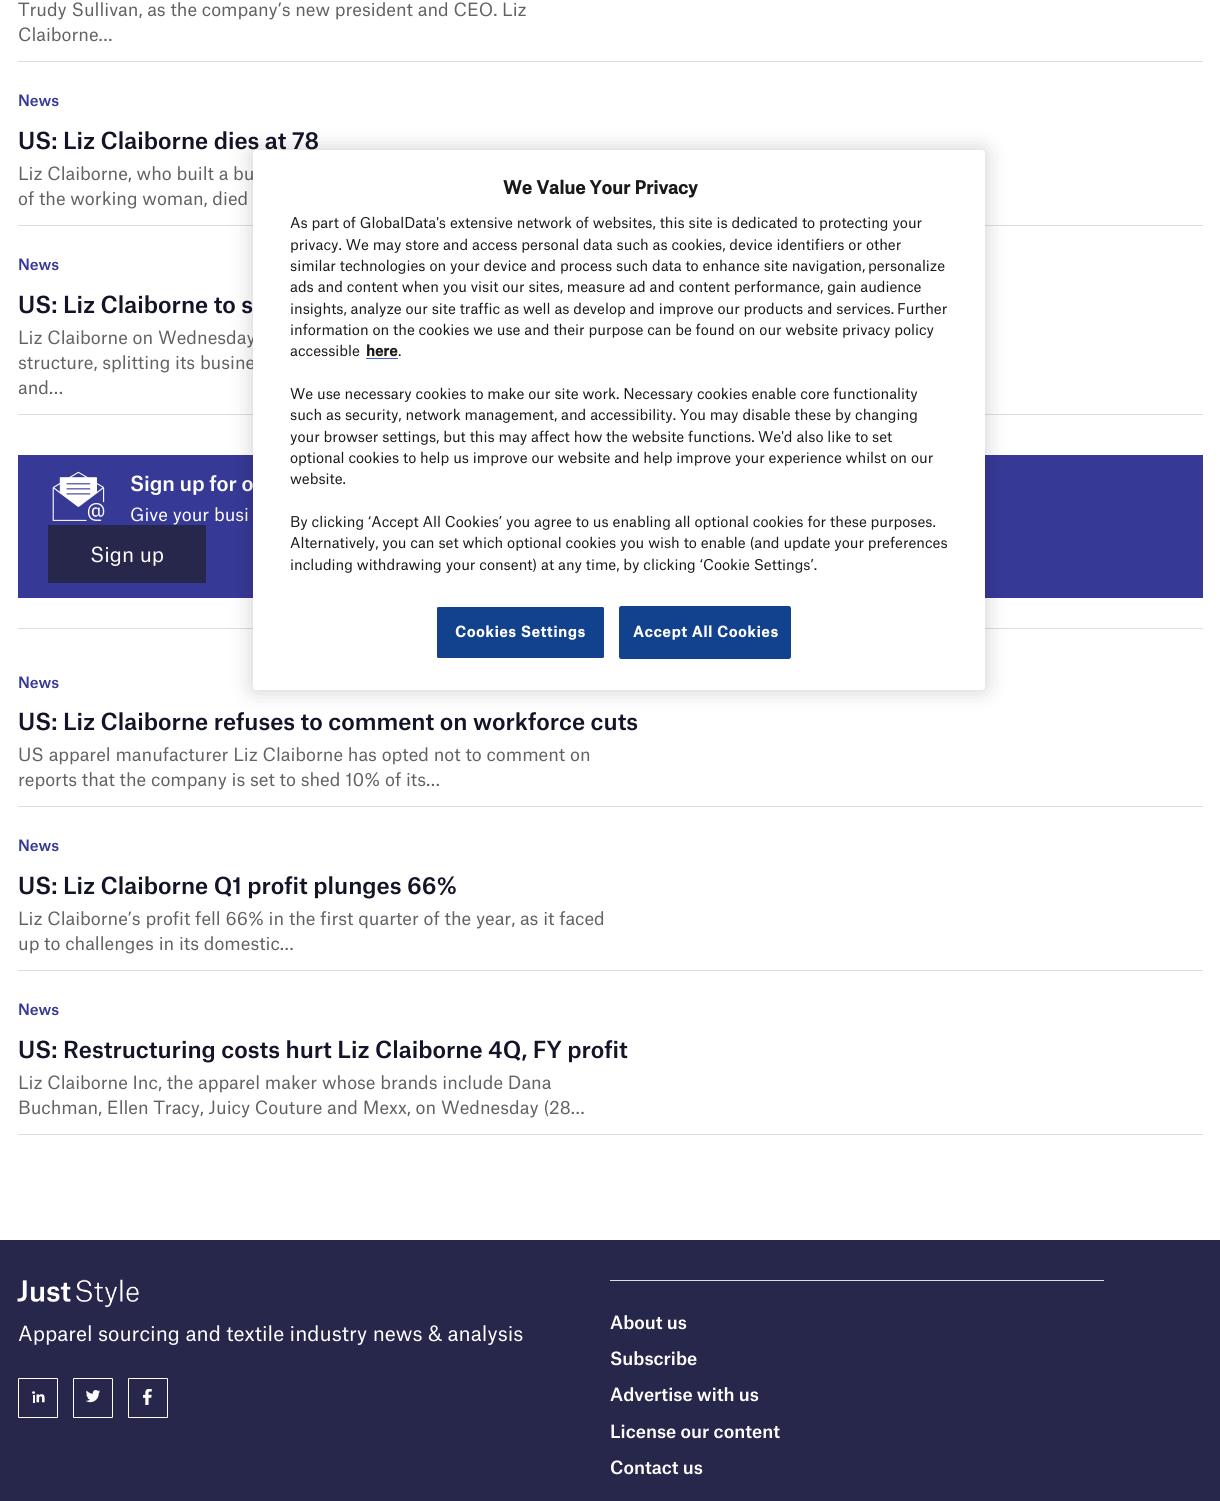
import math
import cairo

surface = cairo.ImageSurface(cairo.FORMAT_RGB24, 1220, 1501)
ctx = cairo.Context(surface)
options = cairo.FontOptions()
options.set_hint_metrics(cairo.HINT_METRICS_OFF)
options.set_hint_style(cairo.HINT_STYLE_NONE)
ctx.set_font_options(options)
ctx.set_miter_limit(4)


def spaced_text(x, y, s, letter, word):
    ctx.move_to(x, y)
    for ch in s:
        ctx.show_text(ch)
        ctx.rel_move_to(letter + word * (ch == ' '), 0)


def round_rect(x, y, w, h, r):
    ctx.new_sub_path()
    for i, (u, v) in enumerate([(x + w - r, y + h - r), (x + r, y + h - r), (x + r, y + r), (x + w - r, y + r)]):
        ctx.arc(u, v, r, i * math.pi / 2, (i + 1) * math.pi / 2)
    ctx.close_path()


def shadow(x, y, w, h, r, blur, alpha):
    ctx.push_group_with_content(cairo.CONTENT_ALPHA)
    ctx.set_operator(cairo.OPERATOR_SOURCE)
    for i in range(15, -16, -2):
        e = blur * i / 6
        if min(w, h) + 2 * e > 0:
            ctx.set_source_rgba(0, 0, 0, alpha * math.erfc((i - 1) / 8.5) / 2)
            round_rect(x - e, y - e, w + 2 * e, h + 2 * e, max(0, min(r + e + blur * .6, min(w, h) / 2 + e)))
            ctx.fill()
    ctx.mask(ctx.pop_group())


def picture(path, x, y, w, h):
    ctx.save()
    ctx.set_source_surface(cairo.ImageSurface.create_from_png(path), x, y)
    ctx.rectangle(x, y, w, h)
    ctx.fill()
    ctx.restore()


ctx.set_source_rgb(1, 1, 1)
ctx.paint()
ctx.set_source_rgb(0.867, 0.867, 0.867)
ctx.rectangle(18, 61, 1185, 1)
ctx.fill()
ctx.select_font_face("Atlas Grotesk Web")
ctx.set_font_size(17.5)
ctx.set_source_rgb(0.384, 0.384, 0.384)
ctx.move_to(18, 16)
ctx.show_text("Trudy Sullivan, as the company’s new president and CEO. Liz")
ctx.move_to(18, 41)
ctx.show_text("Claiborne…")
ctx.set_source_rgb(0.867, 0.867, 0.867)
ctx.rectangle(18, 225, 1185, 1)
ctx.fill()
ctx.select_font_face("Atlas Grotesk Web Medium")
ctx.set_font_size(15)
ctx.set_source_rgb(0.216, 0.224, 0.592)
ctx.move_to(18, 106)
ctx.show_text("News")
ctx.set_font_size(22.5)
ctx.set_source_rgb(0.082, 0.082, 0.161)
ctx.move_to(18, 149)
ctx.show_text("US: Liz Claiborne dies at 78")
ctx.select_font_face("Atlas Grotesk Web")
ctx.set_font_size(17.5)
ctx.set_source_rgb(0.384, 0.384, 0.384)
ctx.move_to(18, 180)
ctx.show_text("Liz Claiborne, who built a bu")
ctx.move_to(18, 205)
ctx.show_text("of the working woman, died")
ctx.set_source_rgb(0.867, 0.867, 0.867)
ctx.rectangle(18, 414, 1185, 1)
ctx.fill()
ctx.select_font_face("Atlas Grotesk Web Medium")
ctx.set_font_size(15)
ctx.set_source_rgb(0.216, 0.224, 0.592)
ctx.move_to(18, 270)
ctx.show_text("News")
ctx.set_font_size(22.5)
ctx.set_source_rgb(0.082, 0.082, 0.161)
ctx.move_to(18, 313)
ctx.show_text("US: Liz Claiborne to s")
ctx.select_font_face("Atlas Grotesk Web")
ctx.set_font_size(17.5)
ctx.set_source_rgb(0.384, 0.384, 0.384)
ctx.move_to(18, 344)
ctx.show_text("Liz Claiborne on Wednesday")
ctx.move_to(18, 369)
ctx.show_text("structure, splitting its busine")
ctx.move_to(18, 394)
ctx.show_text("and…")
ctx.set_source_rgb(0.216, 0.224, 0.592)
ctx.rectangle(18, 455, 1185, 143)
ctx.fill()
picture("img1.png", 52, 471, 53, 50)
ctx.select_font_face("Atlas Grotesk Web Medium")
ctx.set_font_size(20)
ctx.set_source_rgb(1, 1, 1)
spaced_text(130, 491, "Sign up for o", -0.1, 0)
ctx.select_font_face("Atlas Grotesk Web")
ctx.set_font_size(17.5)
ctx.move_to(130, 521)
ctx.show_text("Give your busi")
ctx.set_source_rgb(0.153, 0.153, 0.298)
ctx.rectangle(48, 525, 158, 58)
ctx.fill()
ctx.set_font_size(20)
ctx.set_source_rgb(1, 1, 1)
ctx.move_to(90, 562)
ctx.show_text("Sign up")
ctx.set_source_rgb(0.867, 0.867, 0.867)
ctx.rectangle(18, 628, 1185, 1)
ctx.fill()
ctx.rectangle(18, 806, 1185, 1)
ctx.fill()
ctx.select_font_face("Atlas Grotesk Web Medium")
ctx.set_font_size(15)
ctx.set_source_rgb(0.216, 0.224, 0.592)
ctx.move_to(18, 688)
ctx.show_text("News")
ctx.set_font_size(22.5)
ctx.set_source_rgb(0.082, 0.082, 0.161)
ctx.move_to(18, 730)
ctx.show_text("US: Liz Claiborne refuses to comment on workforce cuts")
ctx.select_font_face("Atlas Grotesk Web")
ctx.set_font_size(17.5)
ctx.set_source_rgb(0.384, 0.384, 0.384)
ctx.move_to(18, 761)
ctx.show_text("US apparel manufacturer Liz Claiborne has opted not to comment on")
ctx.move_to(18, 786)
ctx.show_text("reports that the company is set to shed 10% of its…")
ctx.set_source_rgb(0.867, 0.867, 0.867)
ctx.rectangle(18, 970, 1185, 1)
ctx.fill()
ctx.select_font_face("Atlas Grotesk Web Medium")
ctx.set_font_size(15)
ctx.set_source_rgb(0.216, 0.224, 0.592)
ctx.move_to(18, 851)
ctx.show_text("News")
ctx.set_font_size(22.5)
ctx.set_source_rgb(0.082, 0.082, 0.161)
ctx.move_to(18, 894)
ctx.show_text("US: Liz Claiborne Q1 profit plunges 66%")
ctx.select_font_face("Atlas Grotesk Web")
ctx.set_font_size(17.5)
ctx.set_source_rgb(0.384, 0.384, 0.384)
ctx.move_to(18, 925)
ctx.show_text("Liz Claiborne’s profit fell 66% in the first quarter of the year, as it faced")
ctx.move_to(18, 950)
ctx.show_text("up to challenges in its domestic…")
ctx.set_source_rgb(0.867, 0.867, 0.867)
ctx.rectangle(18, 1134, 1185, 1)
ctx.fill()
ctx.select_font_face("Atlas Grotesk Web Medium")
ctx.set_font_size(15)
ctx.set_source_rgb(0.216, 0.224, 0.592)
ctx.move_to(18, 1015)
ctx.show_text("News")
ctx.set_font_size(22.5)
ctx.set_source_rgb(0.082, 0.082, 0.161)
ctx.move_to(18, 1058)
ctx.show_text("US: Restructuring costs hurt Liz Claiborne 4Q, FY profit")
ctx.select_font_face("Atlas Grotesk Web")
ctx.set_font_size(17.5)
ctx.set_source_rgb(0.384, 0.384, 0.384)
ctx.move_to(18, 1089)
ctx.show_text("Liz Claiborne Inc, the apparel maker whose brands include Dana")
ctx.move_to(18, 1114)
ctx.show_text("Buchman, Ellen Tracy, Juicy Couture and Mexx, on Wednesday (28…")
ctx.set_source_rgb(0, 0, 0)
shadow(253, 150, 732, 540, 3, 11, 0.2)
ctx.set_source_rgb(1, 1, 1)
round_rect(253, 150, 732, 540, 3)
ctx.fill()
ctx.select_font_face("Atlas Grotesk Web", cairo.FONT_SLANT_NORMAL, cairo.FONT_WEIGHT_BOLD)
ctx.set_source_rgb(0.102, 0.102, 0.102)
ctx.move_to(503, 194)
ctx.show_text("We Value Your Privacy")
ctx.select_font_face("Atlas Grotesk Web")
ctx.set_font_size(14.25)
ctx.move_to(290, 228)
ctx.show_text("As part of GlobalData's extensive network of websites, this site is dedicated to protecting your")
ctx.move_to(290, 250)
ctx.show_text("privacy. We may store and access personal data such as cookies, device identifiers or other")
ctx.move_to(290, 271)
ctx.show_text("similar technologies on your device and process such data to enhance site navigation,")
ctx.move_to(868, 271)
ctx.show_text("personalize")
ctx.move_to(290, 292)
ctx.show_text("ads and content when you visit our sites, measure ad and content performance, gain audience")
ctx.move_to(290, 314)
ctx.show_text("insights, analyze our site traffic as well as develop and improve our products and services.")
ctx.move_to(897, 314)
ctx.show_text("Further")
ctx.move_to(290, 335)
ctx.show_text("information on the cookies we use and their purpose can be found on our website privacy policy")
ctx.move_to(290, 356)
ctx.show_text("accessible")
ctx.select_font_face("Atlas Grotesk Web", cairo.FONT_SLANT_NORMAL, cairo.FONT_WEIGHT_BOLD)
ctx.move_to(366, 356)
ctx.show_text("here")
ctx.set_source_rgb(0.22, 0.376, 0.745)
ctx.rectangle(366, 358, 32, 1)
ctx.fill()
ctx.select_font_face("Atlas Grotesk Web")
ctx.set_source_rgb(0.102, 0.102, 0.102)
ctx.move_to(398, 356)
ctx.show_text(".")
ctx.move_to(290, 399)
ctx.show_text("We use necessary cookies to make our site work. Necessary cookies enable core functionality")
ctx.move_to(290, 420)
ctx.show_text("such as security, network management, and accessibility. You may disable these by changing")
ctx.move_to(290, 442)
ctx.show_text("your browser settings, but this may affect how the website functions.")
ctx.move_to(758, 442)
ctx.show_text("We'd also like to set")
ctx.move_to(290, 463)
ctx.show_text("optional cookies to help us improve our website and help improve your experience whilst on our")
ctx.move_to(290, 484)
ctx.show_text("website.")
ctx.move_to(290, 527)
ctx.show_text("By clicking ‘Accept All Cookies’ you agree to us enabling all optional cookies for these purposes.")
ctx.move_to(290, 548)
ctx.show_text("Alternatively, you can set which optional cookies you wish to enable (and update your preferences")
ctx.move_to(290, 570)
ctx.show_text("including withdrawing your consent) at any time, by clicking ‘Cookie Settings’.")
ctx.set_source_rgb(0.071, 0.255, 0.553)
round_rect(436.5, 606.5, 168, 52, 2)
ctx.fill_preserve()
ctx.set_source_rgb(1, 1, 1)
ctx.set_line_width(1)
ctx.stroke()
ctx.select_font_face("Atlas Grotesk Web", cairo.FONT_SLANT_NORMAL, cairo.FONT_WEIGHT_BOLD)
spaced_text(455, 637, "Cookies Settings", 0.75, 0)
ctx.set_source_rgb(0.071, 0.255, 0.553)
round_rect(619.5, 606.5, 171, 52, 2)
ctx.fill_preserve()
ctx.stroke()
ctx.set_source_rgb(1, 1, 1)
spaced_text(633, 637, "Accept All Cookies", 0.75, 0)
ctx.set_source_rgb(0.153, 0.153, 0.298)
ctx.rectangle(0, 1240, 1220, 261)
ctx.fill()
picture("img2.png", 17, 1279, 122, 29)
ctx.select_font_face("Atlas Grotesk Web")
ctx.set_font_size(20)
ctx.set_source_rgb(1, 1, 1)
ctx.move_to(18, 1341)
ctx.show_text("Apparel sourcing and textile industry news & analysis")
round_rect(18.5, 1378.5, 39, 39, 0.5)
ctx.stroke()
picture("img3.png", 32, 1391, 13, 12)
round_rect(73.5, 1378.5, 39, 39, 0.5)
ctx.stroke()
picture("img4.png", 85, 1390, 16, 13)
round_rect(128.5, 1378.5, 39, 39, 0.5)
ctx.stroke()
picture("img5.png", 143, 1389, 9, 16)
ctx.set_source_rgb(0.859, 0.859, 0.859)
ctx.rectangle(610, 1280, 494, 1)
ctx.fill()
ctx.select_font_face("Atlas Grotesk Web Medium")
ctx.set_font_size(17.5)
ctx.set_source_rgb(1, 1, 1)
ctx.move_to(610, 1329)
ctx.show_text("About us")
ctx.move_to(610, 1365)
ctx.show_text("Subscribe")
ctx.move_to(610, 1401)
ctx.show_text("Advertise with us")
ctx.move_to(610, 1438)
ctx.show_text("License our content")
ctx.move_to(610, 1474)
ctx.show_text("Contact us")
surface.write_to_png("page.png")
